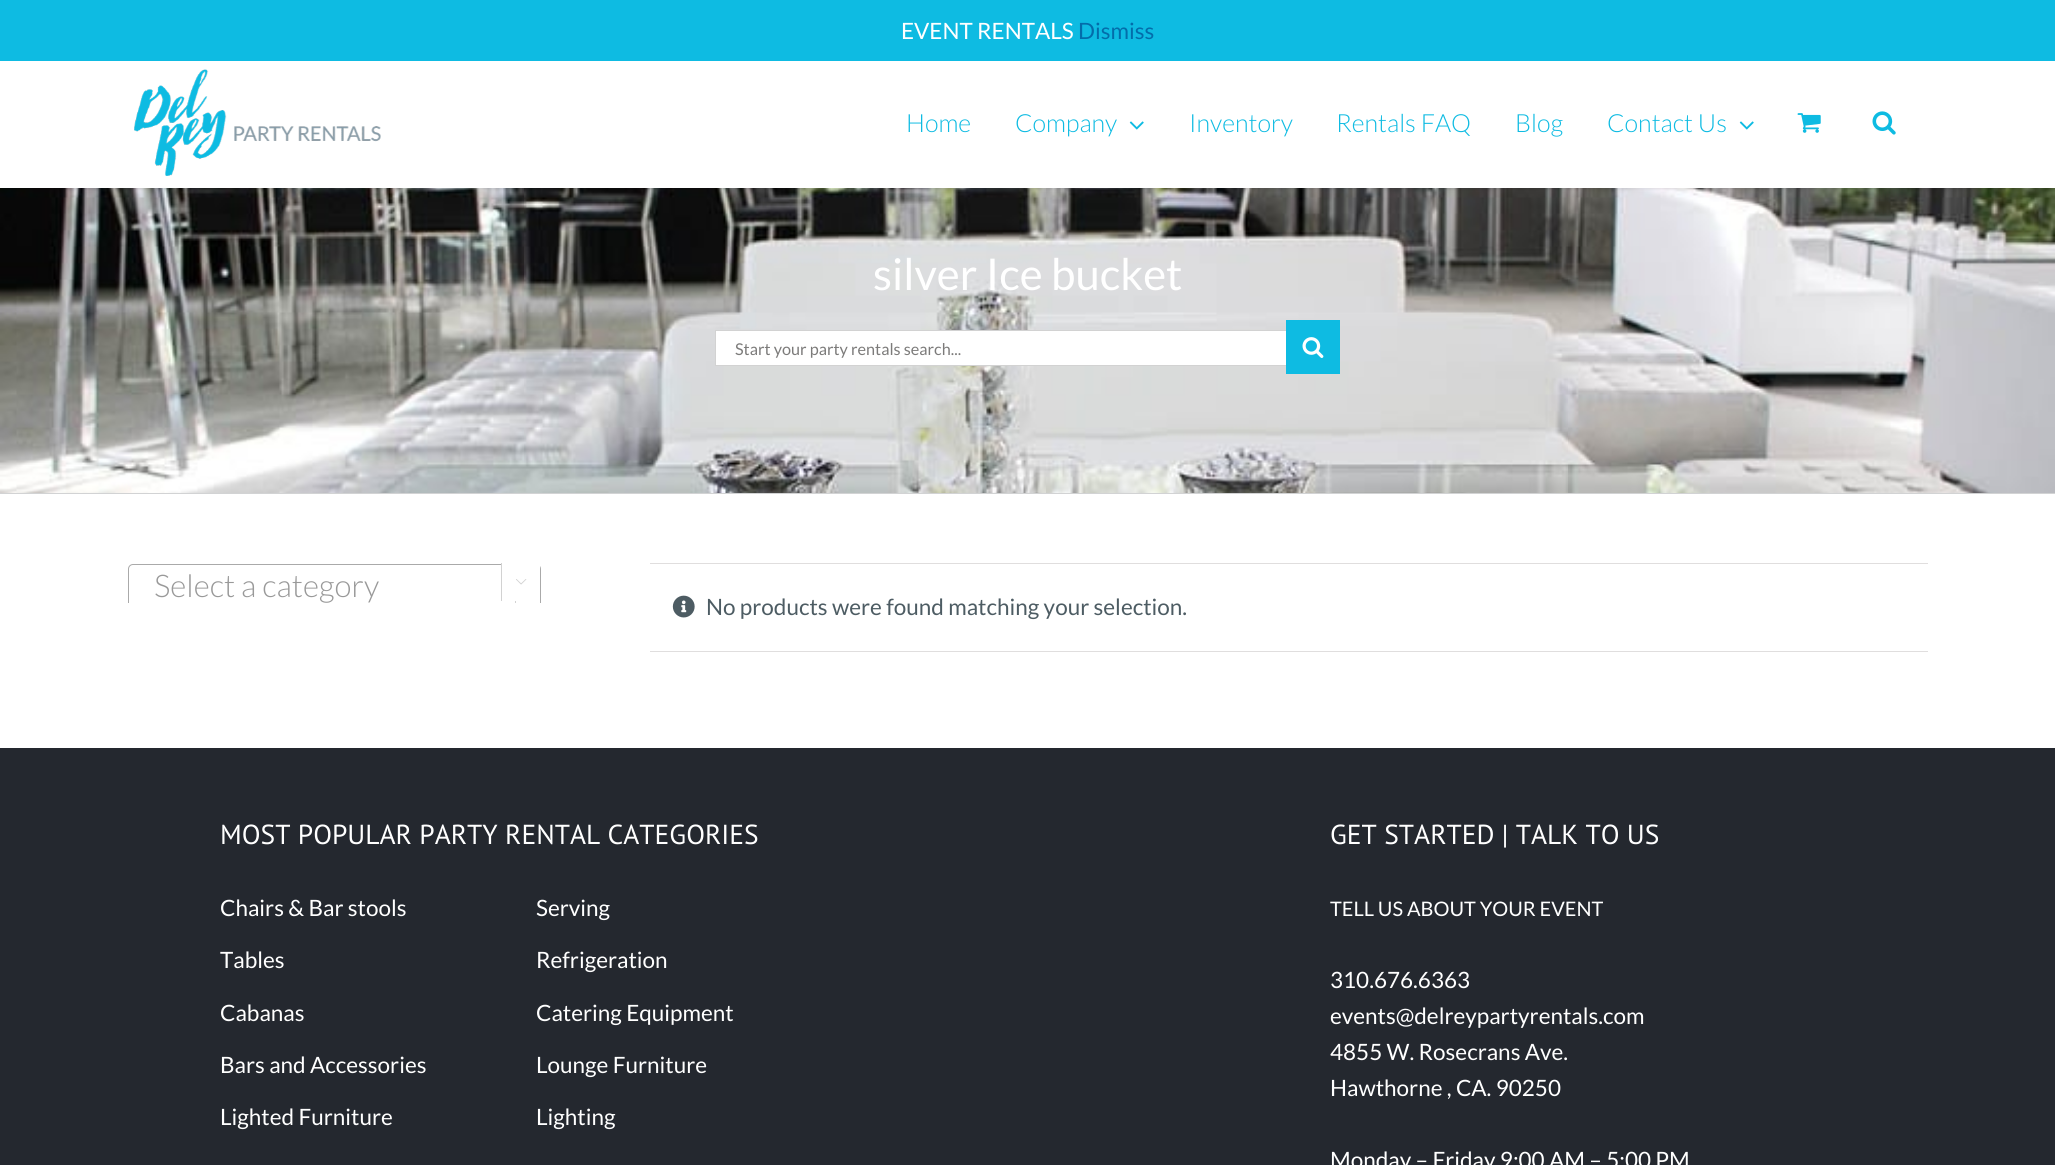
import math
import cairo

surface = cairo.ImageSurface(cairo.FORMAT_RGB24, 2055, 1165)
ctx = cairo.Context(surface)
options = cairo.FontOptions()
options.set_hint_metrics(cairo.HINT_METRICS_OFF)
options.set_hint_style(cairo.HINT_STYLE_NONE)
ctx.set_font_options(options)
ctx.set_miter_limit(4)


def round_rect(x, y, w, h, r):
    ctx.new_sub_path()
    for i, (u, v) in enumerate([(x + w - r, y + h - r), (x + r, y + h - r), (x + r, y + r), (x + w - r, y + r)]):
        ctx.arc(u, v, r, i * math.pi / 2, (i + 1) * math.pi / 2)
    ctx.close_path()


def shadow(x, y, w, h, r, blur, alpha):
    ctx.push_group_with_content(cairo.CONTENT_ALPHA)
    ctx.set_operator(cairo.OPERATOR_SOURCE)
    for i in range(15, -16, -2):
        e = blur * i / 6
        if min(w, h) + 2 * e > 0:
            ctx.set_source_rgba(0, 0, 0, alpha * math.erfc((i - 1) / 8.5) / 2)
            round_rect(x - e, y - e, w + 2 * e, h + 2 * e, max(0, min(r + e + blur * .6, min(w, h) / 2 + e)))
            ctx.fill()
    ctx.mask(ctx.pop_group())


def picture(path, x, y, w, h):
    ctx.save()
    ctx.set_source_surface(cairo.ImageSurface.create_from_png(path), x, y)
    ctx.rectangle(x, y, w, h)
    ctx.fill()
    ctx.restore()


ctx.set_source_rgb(1, 1, 1)
ctx.paint()
picture("img5.png", 0, 188, 2055, 305)
ctx.set_source_rgb(0, 0, 0)
shadow(0, 63, 2055, 126, 0, 2, 0.12)
ctx.set_source_rgb(0.055, 0.733, 0.886)
ctx.rectangle(0, 0, 2055, 61)
ctx.fill()
ctx.select_font_face("Lato")
ctx.set_font_size(22.5)
ctx.set_source_rgb(1, 1, 1)
ctx.move_to(901, 39)
ctx.show_text("EVENT RENTALS")
ctx.set_source_rgb(0.012, 0.427, 0.667)
ctx.move_to(1078, 39)
ctx.show_text("Dismiss")
ctx.set_source_rgb(1, 1, 1)
ctx.rectangle(0, 61, 2055, 127)
ctx.fill()
picture("img1.png", 134, 69, 247, 107)
ctx.select_font_face("Lato Light")
ctx.set_font_size(25)
ctx.set_source_rgb(0.055, 0.733, 0.886)
ctx.move_to(906, 132)
ctx.show_text("Home")
ctx.move_to(1015, 132)
ctx.show_text("Company")
picture("img2.png", 1129, 121, 15, 9)
ctx.move_to(1189, 132)
ctx.show_text("Inventory")
ctx.move_to(1336, 132)
ctx.show_text("Rentals FAQ")
ctx.move_to(1515, 132)
ctx.show_text("Blog")
ctx.move_to(1607, 132)
ctx.show_text("Contact Us")
picture("img2.png", 1739, 121, 15, 9)
picture("img3.png", 1797, 113, 24, 20)
picture("img4.png", 1872, 111, 24, 24)
ctx.set_source_rgb(0.824, 0.827, 0.831)
ctx.rectangle(0, 493, 2055, 1)
ctx.fill()
ctx.select_font_face("Lato")
ctx.set_font_size(43.75)
ctx.set_source_rgb(1, 1, 1)
ctx.move_to(873, 290)
ctx.show_text("silver Ice bucket")
ctx.rectangle(716, 331, 570, 34)
ctx.fill()
ctx.set_source_rgb(0.824, 0.824, 0.824)
ctx.rectangle(715, 330, 571, 1)
ctx.fill()
ctx.rectangle(715, 365, 571, 1)
ctx.fill()
ctx.rectangle(715, 330, 1, 36)
ctx.fill()
ctx.set_font_size(16.25)
ctx.set_source_rgb(0.486, 0.482, 0.478)
ctx.move_to(735, 355)
ctx.show_text("Start your party rentals search...")
ctx.set_source_rgb(0.055, 0.733, 0.886)
ctx.rectangle(1286, 320, 54, 54)
ctx.fill()
picture("img6.png", 1302, 337, 22, 21)
ctx.save()
ctx.rectangle(128, 563, 413, 40)
ctx.clip()
round_rect(128.5, 564.5, 412, 43, 4.5)
ctx.set_source_rgb(0.667, 0.667, 0.667)
ctx.set_line_width(1)
ctx.stroke()
ctx.restore()
ctx.select_font_face("Lato Light")
ctx.set_font_size(31.25)
ctx.set_source_rgb(0.6, 0.6, 0.6)
ctx.move_to(154, 597)
ctx.show_text("Select a category")
ctx.set_source_rgb(0.824, 0.824, 0.824)
ctx.rectangle(515, 601, 1, 2)
ctx.fill()
ctx.set_source_rgb(1, 1, 1)
ctx.rectangle(502, 564, 38, 5)
ctx.fill()
ctx.set_source_rgb(0.824, 0.824, 0.824)
ctx.rectangle(501, 563, 1, 38)
ctx.fill()
picture("img7.png", 516, 579, 11, 6)
ctx.set_source_rgb(0.878, 0.871, 0.871)
ctx.rectangle(650, 563, 1278, 1)
ctx.fill()
ctx.rectangle(650, 651, 1278, 1)
ctx.fill()
picture("img8.png", 672, 595, 23, 23)
ctx.select_font_face("Lato")
ctx.set_font_size(22.5)
ctx.set_source_rgb(0.302, 0.361, 0.388)
ctx.move_to(706, 615)
ctx.show_text("No products were found matching your selection.")
ctx.set_source_rgb(0.141, 0.157, 0.184)
ctx.rectangle(0, 748, 2055, 417)
ctx.fill()
ctx.select_font_face("PT Sans")
ctx.set_font_size(27.5)
ctx.set_source_rgb(1, 1, 1)
ctx.move_to(220, 844)
ctx.show_text("MOST POPULAR PARTY RENTAL CATEGORIES")
ctx.select_font_face("Lato")
ctx.set_font_size(22.5)
ctx.move_to(220, 916)
ctx.show_text("Chairs & Bar stools")
ctx.move_to(220, 968)
ctx.show_text("Tables")
ctx.move_to(220, 1021)
ctx.show_text("Cabanas")
ctx.move_to(220, 1073)
ctx.show_text("Bars and Accessories")
ctx.move_to(220, 1125)
ctx.show_text("Lighted Furniture")
ctx.move_to(536, 916)
ctx.show_text("Serving")
ctx.move_to(536, 968)
ctx.show_text("Refrigeration")
ctx.move_to(536, 1021)
ctx.show_text("Catering Equipment")
ctx.move_to(536, 1073)
ctx.show_text("Lounge Furniture")
ctx.move_to(536, 1125)
ctx.show_text("Lighting")
ctx.select_font_face("PT Sans")
ctx.set_font_size(27.5)
ctx.move_to(1330, 844)
ctx.show_text("GET STARTED | TALK TO US")
ctx.select_font_face("Lato")
ctx.set_font_size(20)
ctx.move_to(1330, 916)
ctx.show_text("TELL US ABOUT YOUR EVENT")
ctx.set_font_size(22.5)
ctx.move_to(1330, 988)
ctx.show_text("310.676.6363")
ctx.move_to(1330, 1024)
ctx.show_text("events@delreypartyrentals.com")
ctx.move_to(1330, 1060)
ctx.show_text("4855 W. Rosecrans Ave.")
ctx.move_to(1330, 1096)
ctx.show_text("Hawthorne , CA. 90250")
ctx.move_to(1330, 1168)
ctx.show_text("Monday – Friday 9:00 AM – 5:00 PM")
surface.write_to_png("page.png")
